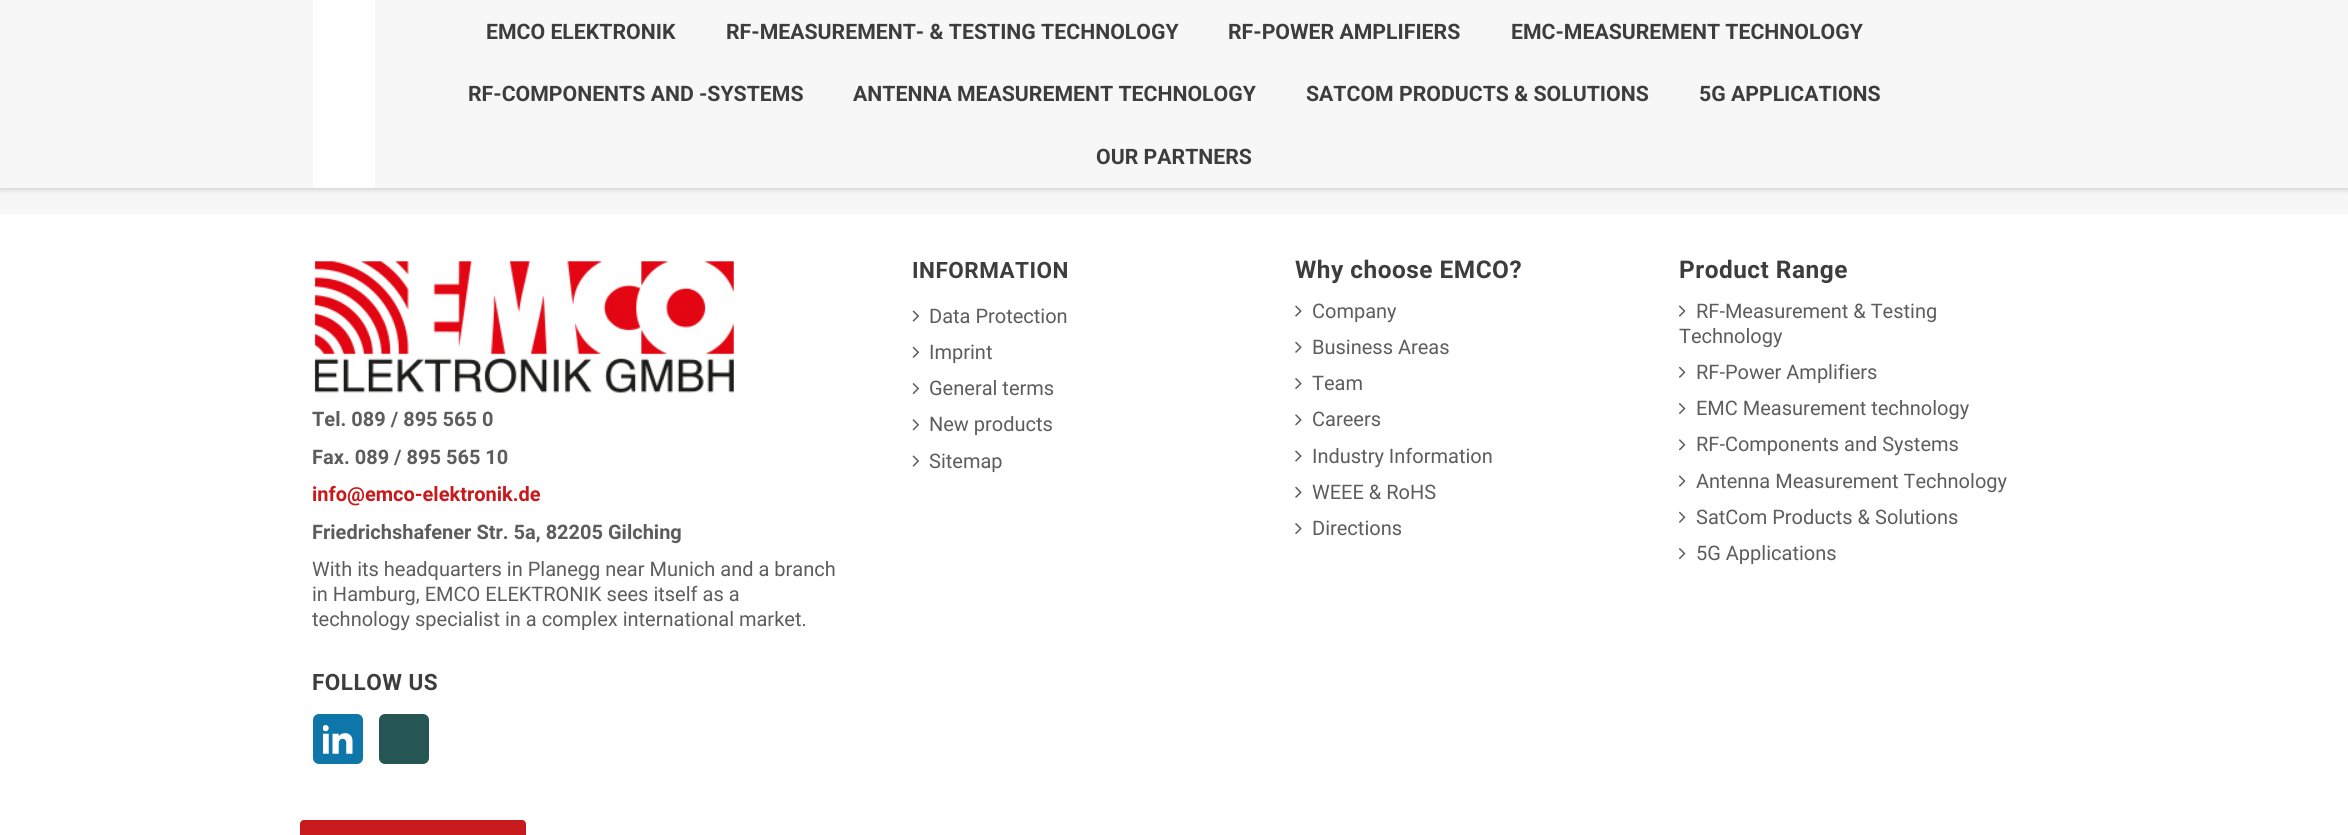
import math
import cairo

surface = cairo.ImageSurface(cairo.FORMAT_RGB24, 2348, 835)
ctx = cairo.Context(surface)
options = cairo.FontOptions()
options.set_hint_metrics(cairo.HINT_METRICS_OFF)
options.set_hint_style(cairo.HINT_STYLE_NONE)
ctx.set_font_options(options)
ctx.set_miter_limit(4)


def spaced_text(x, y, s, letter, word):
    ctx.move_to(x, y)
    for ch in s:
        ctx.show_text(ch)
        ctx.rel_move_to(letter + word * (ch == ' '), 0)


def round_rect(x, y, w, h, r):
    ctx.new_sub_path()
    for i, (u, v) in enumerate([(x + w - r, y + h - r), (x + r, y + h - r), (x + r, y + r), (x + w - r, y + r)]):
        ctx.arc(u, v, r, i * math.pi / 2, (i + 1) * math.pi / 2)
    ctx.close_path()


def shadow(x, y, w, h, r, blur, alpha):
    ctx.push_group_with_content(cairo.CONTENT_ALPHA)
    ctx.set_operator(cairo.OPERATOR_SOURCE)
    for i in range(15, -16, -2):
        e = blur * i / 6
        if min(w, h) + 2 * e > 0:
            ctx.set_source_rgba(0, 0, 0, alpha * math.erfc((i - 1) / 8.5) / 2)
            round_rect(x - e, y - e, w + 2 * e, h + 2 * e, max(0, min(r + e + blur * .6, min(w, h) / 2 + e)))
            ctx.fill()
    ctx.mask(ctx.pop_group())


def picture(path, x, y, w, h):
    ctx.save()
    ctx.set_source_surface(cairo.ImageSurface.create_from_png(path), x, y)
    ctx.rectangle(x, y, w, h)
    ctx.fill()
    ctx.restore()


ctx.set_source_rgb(1, 1, 1)
ctx.paint()
ctx.set_source_rgb(0.965, 0.965, 0.965)
ctx.rectangle(0, 188, 2348, 26)
ctx.fill()
ctx.set_source_rgb(0, 0, 0)
shadow(0, 1, 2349, 188, 0, 3, 0.2)
ctx.set_source_rgb(0.965, 0.965, 0.965)
ctx.rectangle(0, 0, 2348, 188)
ctx.fill()
ctx.set_source_rgb(1, 1, 1)
ctx.rectangle(313, 0, 62, 188)
ctx.fill()
ctx.select_font_face("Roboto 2", cairo.FONT_SLANT_NORMAL, cairo.FONT_WEIGHT_BOLD)
ctx.set_font_size(21.25)
ctx.set_source_rgb(0.239, 0.239, 0.239)
ctx.move_to(486, 39)
ctx.show_text("EMCO ELEKTRONIK")
ctx.move_to(726, 39)
ctx.show_text("RF-MEASUREMENT- & TESTING TECHNOLOGY")
ctx.move_to(1228, 39)
ctx.show_text("RF-POWER AMPLIFIERS")
ctx.move_to(1511, 39)
ctx.show_text("EMC-MEASUREMENT TECHNOLOGY")
ctx.move_to(468, 101)
ctx.show_text("RF-COMPONENTS AND -SYSTEMS")
ctx.move_to(853, 101)
ctx.show_text("ANTENNA MEASUREMENT TECHNOLOGY")
ctx.move_to(1306, 101)
ctx.show_text("SATCOM PRODUCTS & SOLUTIONS")
ctx.move_to(1699, 101)
ctx.show_text("5G APPLICATIONS")
ctx.move_to(1096, 164)
ctx.show_text("OUR PARTNERS")
picture("img1.png", 314, 259, 420, 134)
ctx.select_font_face("Roboto", cairo.FONT_SLANT_NORMAL, cairo.FONT_WEIGHT_BOLD)
ctx.set_font_size(20)
ctx.set_source_rgb(0.365, 0.365, 0.365)
ctx.move_to(312, 426)
ctx.show_text("Tel. 089 / 895 565 0")
ctx.move_to(312, 464)
ctx.show_text("Fax. 089 / 895 565 10")
ctx.set_source_rgb(0.784, 0.098, 0.11)
ctx.move_to(312, 501)
ctx.show_text("info@emco-elektronik.de")
ctx.set_source_rgb(0.365, 0.365, 0.365)
ctx.move_to(312, 539)
ctx.show_text("Friedrichshafener Str. 5a, 82205 Gilching")
ctx.select_font_face("Roboto")
ctx.move_to(312, 576)
ctx.show_text("With its headquarters in Planegg near Munich and a branch")
ctx.move_to(312, 601)
ctx.show_text("in Hamburg, EMCO ELEKTRONIK sees itself as a")
ctx.move_to(312, 626)
ctx.show_text("technology specialist in a complex international market.")
ctx.select_font_face("Roboto 2", cairo.FONT_SLANT_NORMAL, cairo.FONT_WEIGHT_BOLD)
ctx.set_font_size(22.5)
ctx.set_source_rgb(0.239, 0.239, 0.239)
spaced_text(312, 690, "FOLLOW US", 0.5, 0)
ctx.set_source_rgb(0.055, 0.463, 0.659)
round_rect(313, 714, 50, 50, 6)
ctx.fill()
picture("img2.png", 323, 725, 30, 29)
ctx.set_source_rgb(0.149, 0.337, 0.325)
round_rect(379, 714, 50, 50, 6)
ctx.fill()
ctx.set_source_rgb(0.239, 0.239, 0.239)
spaced_text(912, 278, "INFORMATION", 0.5, 0)
picture("img3.png", 912, 310, 8, 12)
ctx.select_font_face("Roboto")
ctx.set_font_size(20)
ctx.set_source_rgb(0.365, 0.365, 0.365)
ctx.move_to(929, 323)
ctx.show_text("Data Protection")
picture("img4.png", 912, 346, 8, 12)
ctx.move_to(929, 359)
ctx.show_text("Imprint")
picture("img5.png", 912, 383, 8, 12)
ctx.move_to(929, 395)
ctx.show_text("General terms")
picture("img6.png", 912, 419, 8, 12)
ctx.move_to(929, 431)
ctx.show_text("New products")
picture("img3.png", 912, 455, 8, 12)
ctx.move_to(929, 468)
ctx.show_text("Sitemap")
ctx.select_font_face("Roboto 2", cairo.FONT_SLANT_NORMAL, cairo.FONT_WEIGHT_BOLD)
ctx.set_font_size(24.4)
ctx.set_source_rgb(0.239, 0.239, 0.239)
spaced_text(1295, 278, "Why choose EMCO?", 0.5, 0)
picture("img7.png", 1295, 305, 7, 12)
ctx.select_font_face("Roboto")
ctx.set_font_size(20)
ctx.set_source_rgb(0.365, 0.365, 0.365)
ctx.move_to(1312, 318)
ctx.show_text("Company")
picture("img8.png", 1295, 341, 7, 12)
ctx.move_to(1312, 354)
ctx.show_text("Business Areas")
picture("img9.png", 1295, 378, 7, 12)
ctx.move_to(1312, 390)
ctx.show_text("Team")
picture("img10.png", 1295, 414, 7, 12)
ctx.move_to(1312, 426)
ctx.show_text("Careers")
picture("img7.png", 1295, 450, 7, 12)
ctx.move_to(1312, 463)
ctx.show_text("Industry Information")
picture("img8.png", 1295, 486, 7, 12)
ctx.move_to(1312, 499)
ctx.show_text("WEEE & RoHS")
picture("img9.png", 1295, 523, 7, 12)
ctx.move_to(1312, 535)
ctx.show_text("Directions")
ctx.select_font_face("Roboto 2", cairo.FONT_SLANT_NORMAL, cairo.FONT_WEIGHT_BOLD)
ctx.set_font_size(24.4)
ctx.set_source_rgb(0.239, 0.239, 0.239)
spaced_text(1679, 278, "Product Range", 0.5, 0)
picture("img11.png", 1678, 305, 8, 12)
ctx.select_font_face("Roboto")
ctx.set_font_size(20)
ctx.set_source_rgb(0.365, 0.365, 0.365)
ctx.move_to(1696, 318)
ctx.show_text("RF-Measurement & Testing")
ctx.move_to(1679, 343)
ctx.show_text("Technology")
picture("img12.png", 1679, 366, 7, 12)
ctx.move_to(1696, 379)
ctx.show_text("RF-Power Amplifiers")
picture("img13.png", 1679, 403, 7, 12)
ctx.move_to(1696, 415)
ctx.show_text("EMC Measurement technology")
picture("img14.png", 1679, 439, 7, 12)
ctx.move_to(1696, 451)
ctx.show_text("RF-Components and Systems")
picture("img11.png", 1678, 475, 8, 12)
ctx.move_to(1696, 488)
ctx.show_text("Antenna Measurement Technology")
picture("img12.png", 1679, 511, 7, 12)
ctx.move_to(1696, 524)
ctx.show_text("SatCom Products & Solutions")
picture("img13.png", 1679, 548, 7, 12)
ctx.move_to(1696, 560)
ctx.show_text("5G Applications")
ctx.set_source_rgb(0.784, 0.098, 0.11)
round_rect(300, 820, 226, 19, 4)
ctx.fill()
surface.write_to_png("page.png")
